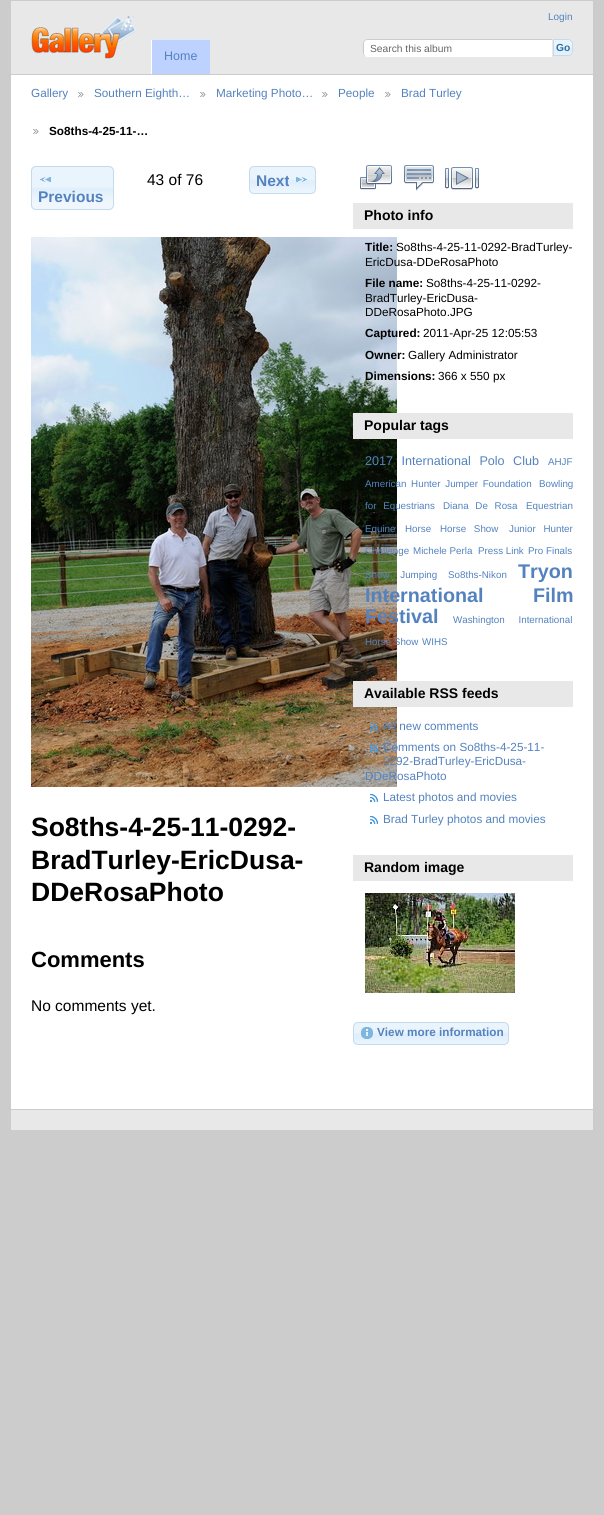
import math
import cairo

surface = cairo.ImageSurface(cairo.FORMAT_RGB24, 604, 1515)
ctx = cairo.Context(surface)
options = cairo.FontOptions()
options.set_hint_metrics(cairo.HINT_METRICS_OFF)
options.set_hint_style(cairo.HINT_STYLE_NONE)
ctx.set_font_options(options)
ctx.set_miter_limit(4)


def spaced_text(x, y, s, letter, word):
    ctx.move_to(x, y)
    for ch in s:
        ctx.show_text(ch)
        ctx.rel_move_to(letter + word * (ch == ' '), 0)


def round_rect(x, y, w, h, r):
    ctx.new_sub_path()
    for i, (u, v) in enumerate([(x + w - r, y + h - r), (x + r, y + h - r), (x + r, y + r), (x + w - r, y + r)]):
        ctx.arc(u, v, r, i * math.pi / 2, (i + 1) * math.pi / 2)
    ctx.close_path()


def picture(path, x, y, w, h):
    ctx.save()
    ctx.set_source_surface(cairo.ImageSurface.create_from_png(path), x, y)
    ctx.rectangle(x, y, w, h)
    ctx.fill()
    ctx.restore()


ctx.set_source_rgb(0.8, 0.8, 0.8)
ctx.paint()
ctx.set_source_rgb(1, 1, 1)
ctx.rectangle(11, 75, 582, 1034)
ctx.fill()
ctx.set_source_rgb(0.91, 0.91, 0.91)
ctx.rectangle(11, 1, 582, 73)
ctx.fill()
picture("img1.png", 31, 15, 106, 44)
ctx.select_font_face("Liberation Sans")
ctx.set_font_size(10)
ctx.set_source_rgb(0.325, 0.51, 0.749)
ctx.move_to(548, 20)
ctx.show_text("Login")
ctx.set_source_rgb(1, 1, 1)
ctx.new_path()
ctx.move_to(368, 39)
ctx.line_to(553, 39)
ctx.line_to(553, 58)
ctx.line_to(368, 58)
ctx.curve_to(365, 58, 363, 56, 363, 53)
ctx.line_to(363, 44)
ctx.curve_to(363, 41, 365, 39, 368, 39)
ctx.close_path()
ctx.fill()
ctx.set_source_rgb(0.8, 0.8, 0.8)
ctx.new_path()
ctx.move_to(368, 39)
ctx.curve_to(366, 39, 365, 40, 364, 40)
ctx.line_to(365, 41)
ctx.curve_to(366, 40, 367, 40, 368, 40)
ctx.line_to(552, 40)
ctx.line_to(553, 39)
ctx.close_path()
ctx.fill()
ctx.set_source_rgb(0.91, 0.91, 0.91)
ctx.new_path()
ctx.move_to(553, 39)
ctx.line_to(552, 40)
ctx.line_to(552, 57)
ctx.line_to(553, 58)
ctx.close_path()
ctx.fill()
ctx.new_path()
ctx.move_to(553, 58)
ctx.line_to(552, 57)
ctx.line_to(367, 57)
ctx.line_to(365, 56)
ctx.line_to(364, 57)
ctx.curve_to(365, 58, 366, 58, 368, 58)
ctx.close_path()
ctx.fill()
ctx.set_source_rgb(0.8, 0.8, 0.8)
ctx.new_path()
ctx.move_to(363, 44)
ctx.curve_to(363, 47, 362, 54.5, 364.5, 56.5)
ctx.line_to(365, 56)
ctx.line_to(364, 54)
ctx.line_to(364, 43.5)
ctx.curve_to(364, 42.5, 364.5, 41.5, 365, 41)
ctx.line_to(364.5, 40.5)
ctx.curve_to(363.5, 41, 363, 42.5, 363, 44)
ctx.close_path()
ctx.fill()
ctx.set_font_size(10.25)
ctx.set_source_rgb(0.4, 0.4, 0.4)
ctx.move_to(370, 52)
ctx.show_text("Search this album")
picture("img2.png", 554, 39, 19, 17)
ctx.new_path()
ctx.move_to(553.5, 39.5)
ctx.line_to(568, 39.5)
ctx.curve_to(570.5, 39.5, 572.5, 41.5, 572.5, 44)
ctx.line_to(572.5, 51)
ctx.curve_to(572.5, 53.5, 570.5, 55.5, 568, 55.5)
ctx.line_to(553.5, 55.5)
ctx.close_path()
ctx.set_source_rgb(0.773, 0.859, 0.925)
ctx.set_line_width(1)
ctx.stroke()
ctx.select_font_face("Liberation Sans", cairo.FONT_SLANT_NORMAL, cairo.FONT_WEIGHT_BOLD)
ctx.set_source_rgb(0.18, 0.431, 0.62)
ctx.move_to(556, 51)
ctx.show_text("Go")
ctx.set_source_rgb(0.741, 0.824, 1)
ctx.rectangle(151, 39, 59, 35)
ctx.fill()
ctx.set_source_rgb(0.871, 0.914, 1)
ctx.new_path()
ctx.move_to(151, 39)
ctx.line_to(210, 39)
ctx.line_to(210, 40)
ctx.line_to(152, 40)
ctx.close_path()
ctx.fill()
ctx.set_source_rgb(1, 1, 1)
ctx.new_path()
ctx.move_to(151, 74)
ctx.line_to(151, 39)
ctx.line_to(152, 40)
ctx.line_to(152, 74)
ctx.close_path()
ctx.fill()
ctx.select_font_face("Liberation Sans")
ctx.set_font_size(12.5)
ctx.set_source_rgb(0.325, 0.51, 0.749)
ctx.move_to(164, 60)
ctx.show_text("Home")
ctx.set_font_size(11.75)
ctx.move_to(31, 97)
ctx.show_text("Gallery")
picture("img3.png", 78, 92, 6, 5)
ctx.move_to(94, 97)
ctx.show_text("Southern Eighth…")
picture("img3.png", 200, 92, 6, 5)
ctx.move_to(216, 97)
ctx.show_text("Marketing Photo…")
picture("img3.png", 322, 92, 6, 5)
ctx.move_to(338, 97)
ctx.show_text("People")
picture("img3.png", 385, 92, 6, 5)
ctx.move_to(401, 97)
ctx.show_text("Brad Turley")
picture("img3.png", 33, 129, 6, 5)
ctx.select_font_face("Liberation Sans", cairo.FONT_SLANT_NORMAL, cairo.FONT_WEIGHT_BOLD)
ctx.set_source_rgb(0, 0, 0)
ctx.move_to(49, 135)
ctx.show_text("So8ths-4-25-11-…")
ctx.select_font_face("Liberation Sans")
ctx.set_font_size(15.5)
ctx.move_to(147, 185)
ctx.show_text("43 of 76")
picture("img4.png", 249, 166, 67, 28)
round_rect(249.5, 166.5, 66, 27, 4.5)
ctx.set_source_rgb(0.773, 0.859, 0.925)
ctx.stroke()
ctx.select_font_face("Liberation Sans", cairo.FONT_SLANT_NORMAL, cairo.FONT_WEIGHT_BOLD)
ctx.set_source_rgb(0.325, 0.51, 0.749)
ctx.move_to(256, 186)
ctx.show_text("Next")
picture("img5.png", 296, 177, 11, 5)
picture("img6.png", 31, 166, 83, 44)
round_rect(31.5, 166.5, 82, 43, 4.5)
ctx.set_source_rgb(0.773, 0.859, 0.925)
ctx.stroke()
picture("img7.png", 40, 177, 11, 5)
ctx.set_source_rgb(0.325, 0.51, 0.749)
ctx.move_to(38, 202)
ctx.show_text("Previous")
picture("img8.png", 31, 237, 366, 550)
ctx.set_font_size(26.5)
ctx.set_source_rgb(0, 0, 0)
ctx.move_to(31, 836)
ctx.show_text("So8ths-4-25-11-0292-")
ctx.move_to(31, 869)
ctx.show_text("BradTurley-EricDusa-")
ctx.move_to(31, 901)
ctx.show_text("DDeRosaPhoto")
ctx.set_font_size(22)
ctx.move_to(31, 967)
ctx.show_text("Comments")
ctx.select_font_face("Liberation Sans")
ctx.set_font_size(15.5)
ctx.move_to(31, 1011)
ctx.show_text("No comments yet.")
picture("img9.png", 360, 165, 32, 25)
picture("img10.png", 404, 165, 30, 26)
picture("img11.png", 445, 167, 34, 23)
ctx.set_source_rgb(0.91, 0.91, 0.91)
ctx.rectangle(353, 203, 220, 26)
ctx.fill()
ctx.select_font_face("Liberation Sans", cairo.FONT_SLANT_NORMAL, cairo.FONT_WEIGHT_BOLD)
ctx.set_font_size(14)
ctx.set_source_rgb(0, 0, 0)
ctx.move_to(364, 220)
ctx.show_text("Photo info")
ctx.set_font_size(11.75)
ctx.move_to(365, 251)
ctx.show_text("Title:")
ctx.select_font_face("Liberation Sans")
ctx.move_to(396, 251)
ctx.show_text("So8ths-4-25-11-0292-BradTurley-")
ctx.move_to(365, 266)
ctx.show_text("EricDusa-DDeRosaPhoto")
ctx.select_font_face("Liberation Sans", cairo.FONT_SLANT_NORMAL, cairo.FONT_WEIGHT_BOLD)
ctx.move_to(365, 287)
ctx.show_text("File name:")
ctx.select_font_face("Liberation Sans")
ctx.move_to(426, 287)
ctx.show_text("So8ths-4-25-11-0292-")
ctx.move_to(365, 302)
ctx.show_text("BradTurley-EricDusa-")
ctx.move_to(365, 316)
ctx.show_text("DDeRosaPhoto.JPG")
ctx.select_font_face("Liberation Sans", cairo.FONT_SLANT_NORMAL, cairo.FONT_WEIGHT_BOLD)
ctx.move_to(365, 337)
ctx.show_text("Captured:")
ctx.select_font_face("Liberation Sans")
ctx.move_to(423, 337)
ctx.show_text("2011-Apr-25 12:05:53")
ctx.select_font_face("Liberation Sans", cairo.FONT_SLANT_NORMAL, cairo.FONT_WEIGHT_BOLD)
ctx.move_to(365, 359)
ctx.show_text("Owner:")
ctx.select_font_face("Liberation Sans")
ctx.move_to(408, 359)
ctx.show_text("Gallery Administrator")
ctx.select_font_face("Liberation Sans", cairo.FONT_SLANT_NORMAL, cairo.FONT_WEIGHT_BOLD)
ctx.move_to(365, 380)
ctx.show_text("Dimensions:")
ctx.select_font_face("Liberation Sans")
ctx.move_to(438, 380)
ctx.show_text("366 x 550 px")
ctx.set_source_rgb(0.91, 0.91, 0.91)
ctx.rectangle(353, 413, 220, 26)
ctx.fill()
ctx.select_font_face("Liberation Sans", cairo.FONT_SLANT_NORMAL, cairo.FONT_WEIGHT_BOLD)
ctx.set_font_size(14)
ctx.set_source_rgb(0, 0, 0)
ctx.move_to(364, 430)
ctx.show_text("Popular tags")
ctx.select_font_face("Liberation Sans")
ctx.set_font_size(12.6)
ctx.set_source_rgb(0.325, 0.51, 0.749)
spaced_text(365, 465, "2017 International Polo Club", 0, 5)
ctx.set_font_size(9.8)
ctx.move_to(548, 465)
ctx.show_text("AHJF")
spaced_text(365, 487, "American Hunter Jumper Foundation", 0, 2)
ctx.move_to(539, 487)
ctx.show_text("Bowling")
spaced_text(365, 509, "for Equestrians", 0, 4)
spaced_text(443, 509, "Diana De Rosa", 0, 4)
ctx.move_to(526, 509)
ctx.show_text("Equestrian")
ctx.move_to(365, 532)
ctx.show_text("Equine")
ctx.move_to(405, 532)
ctx.show_text("Horse")
spaced_text(440, 532, "Horse Show", 0, 5)
spaced_text(509, 532, "Junior Hunter", 0, 5)
ctx.move_to(365, 554)
ctx.show_text("Challenge")
ctx.move_to(413, 554)
ctx.show_text("Michele Perla")
ctx.move_to(478, 554)
ctx.show_text("Press Link")
ctx.move_to(528, 554)
ctx.show_text("Pro Finals")
spaced_text(365, 578, "Show Jumping", 0, 8)
ctx.move_to(448, 578)
ctx.show_text("So8ths-Nikon")
ctx.select_font_face("Liberation Sans", cairo.FONT_SLANT_NORMAL, cairo.FONT_WEIGHT_BOLD)
ctx.set_font_size(19.75)
ctx.move_to(518, 578)
ctx.show_text("Tryon")
spaced_text(365, 602, "International Film", 0, 44)
ctx.move_to(365, 623)
ctx.show_text("Festival")
ctx.select_font_face("Liberation Sans")
ctx.set_font_size(9.8)
spaced_text(453, 623, "Washington International", 0, 11)
ctx.move_to(365, 645)
ctx.show_text("Horse Show")
ctx.move_to(422, 645)
ctx.show_text("WIHS")
ctx.set_source_rgb(0.91, 0.91, 0.91)
ctx.rectangle(353, 681, 220, 26)
ctx.fill()
ctx.select_font_face("Liberation Sans", cairo.FONT_SLANT_NORMAL, cairo.FONT_WEIGHT_BOLD)
ctx.set_font_size(14)
ctx.set_source_rgb(0, 0, 0)
ctx.move_to(364, 698)
ctx.show_text("Available RSS feeds")
picture("img12.png", 370, 723, 8, 8)
ctx.select_font_face("Liberation Sans")
ctx.set_font_size(11.75)
ctx.set_source_rgb(0.325, 0.51, 0.749)
ctx.move_to(383, 730)
ctx.show_text("All new comments")
picture("img13.png", 370, 744, 8, 8)
ctx.move_to(383, 751)
ctx.show_text("Comments on So8ths-4-25-11-")
ctx.move_to(383, 765)
ctx.show_text("0292-BradTurley-EricDusa-")
ctx.move_to(365, 780)
ctx.show_text("DDeRosaPhoto")
picture("img14.png", 370, 794, 8, 8)
ctx.move_to(383, 801)
ctx.show_text("Latest photos and movies")
picture("img14.png", 370, 816, 8, 8)
ctx.move_to(383, 823)
ctx.show_text("Brad Turley photos and movies")
ctx.set_source_rgb(0.91, 0.91, 0.91)
ctx.rectangle(353, 855, 220, 26)
ctx.fill()
ctx.select_font_face("Liberation Sans", cairo.FONT_SLANT_NORMAL, cairo.FONT_WEIGHT_BOLD)
ctx.set_font_size(14)
ctx.set_source_rgb(0, 0, 0)
ctx.move_to(364, 872)
ctx.show_text("Random image")
picture("img15.png", 365, 893, 150, 100)
picture("img16.png", 353, 1022, 156, 23)
round_rect(353.5, 1022.5, 155, 22, 4.5)
ctx.set_source_rgb(0.773, 0.859, 0.925)
ctx.stroke()
picture("img17.png", 361, 1027, 12, 12)
ctx.set_font_size(11.75)
ctx.set_source_rgb(0.325, 0.51, 0.749)
ctx.move_to(377, 1036)
ctx.show_text("View more information")
ctx.set_source_rgb(0.91, 0.91, 0.91)
ctx.rectangle(11, 1110, 582, 20)
ctx.fill()
surface.write_to_png("page.png")
